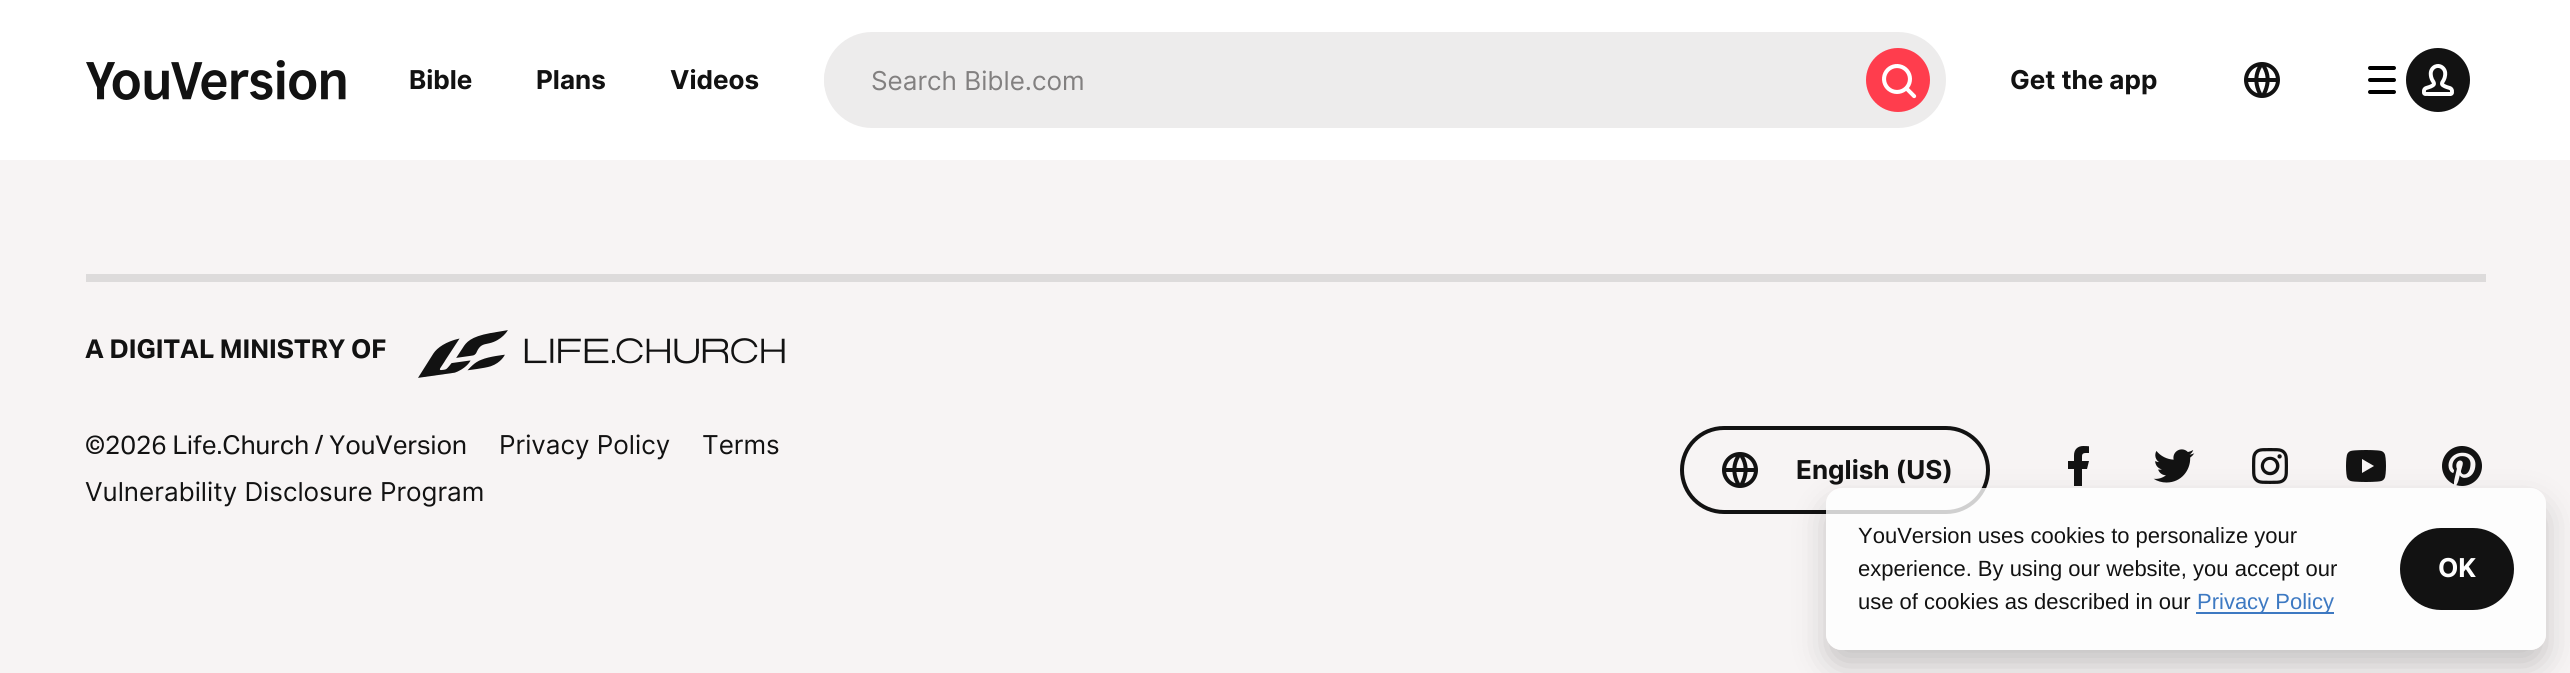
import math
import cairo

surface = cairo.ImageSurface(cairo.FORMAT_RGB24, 2570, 673)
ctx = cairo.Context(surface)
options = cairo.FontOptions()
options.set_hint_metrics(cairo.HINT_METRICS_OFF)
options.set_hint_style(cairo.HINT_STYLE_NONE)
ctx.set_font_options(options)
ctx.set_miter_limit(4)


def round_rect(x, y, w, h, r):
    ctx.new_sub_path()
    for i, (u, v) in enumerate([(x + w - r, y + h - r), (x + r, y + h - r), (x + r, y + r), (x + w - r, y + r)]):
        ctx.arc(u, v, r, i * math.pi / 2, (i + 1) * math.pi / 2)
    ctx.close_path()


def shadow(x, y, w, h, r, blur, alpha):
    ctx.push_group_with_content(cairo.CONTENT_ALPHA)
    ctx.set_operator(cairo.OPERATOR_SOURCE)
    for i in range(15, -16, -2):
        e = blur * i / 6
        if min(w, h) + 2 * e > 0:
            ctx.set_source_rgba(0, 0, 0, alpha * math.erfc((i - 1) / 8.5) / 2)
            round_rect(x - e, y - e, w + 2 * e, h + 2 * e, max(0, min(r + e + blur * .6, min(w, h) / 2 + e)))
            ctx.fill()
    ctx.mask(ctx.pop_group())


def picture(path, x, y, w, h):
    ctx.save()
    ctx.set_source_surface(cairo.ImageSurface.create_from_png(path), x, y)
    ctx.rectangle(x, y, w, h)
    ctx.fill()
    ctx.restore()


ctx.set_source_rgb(0.965, 0.957, 0.957)
ctx.paint()
ctx.set_source_rgb(1, 1, 1)
ctx.rectangle(0, 0, 2570, 160)
ctx.fill()
picture("img1.png", 86, 60, 260, 40)
ctx.select_font_face("Inter", cairo.FONT_SLANT_NORMAL, cairo.FONT_WEIGHT_BOLD)
ctx.set_font_size(26)
ctx.set_source_rgb(0.071, 0.071, 0.071)
ctx.move_to(409, 89)
ctx.show_text("Bible")
ctx.move_to(536, 89)
ctx.show_text("Plans")
ctx.move_to(670, 89)
ctx.show_text("Videos")
ctx.set_source_rgb(0.929, 0.922, 0.922)
round_rect(824, 32, 1122, 96, 48)
ctx.fill()
round_rect(824, 48, 1026, 64, 32)
ctx.fill()
ctx.select_font_face("Inter")
ctx.set_source_rgb(0.51, 0.502, 0.502)
ctx.move_to(871, 90)
ctx.show_text("Search Bible.com")
ctx.set_source_rgb(1, 0.239, 0.302)
ctx.new_path()
ctx.arc(1898, 80, 32, 0, 2 * math.pi)
ctx.fill()
picture("img2.png", 1882, 64, 35, 35)
ctx.select_font_face("Inter", cairo.FONT_SLANT_NORMAL, cairo.FONT_WEIGHT_BOLD)
ctx.set_source_rgb(0.071, 0.071, 0.071)
ctx.move_to(2010, 89)
ctx.show_text("Get the app")
picture("img3.png", 2244, 62, 36, 36)
picture("img4.png", 2368, 66, 28, 28)
ctx.arc(2438, 80, 32, 0, 2 * math.pi)
ctx.fill()
picture("img5.png", 2422, 64, 32, 32)
ctx.set_source_rgb(0.867, 0.859, 0.859)
ctx.rectangle(86, 274, 2400, 8)
ctx.fill()
ctx.select_font_face("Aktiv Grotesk", cairo.FONT_SLANT_NORMAL, cairo.FONT_WEIGHT_BOLD)
ctx.set_source_rgb(0.071, 0.071, 0.071)
ctx.move_to(85, 358)
ctx.show_text("A DIGITAL MINISTRY OF")
picture("img6.png", 418, 330, 367, 48)
ctx.select_font_face("Aktiv Grotesk")
ctx.move_to(85, 454)
ctx.show_text("©2026 Life.Church / YouVersion")
ctx.select_font_face("Inter")
ctx.move_to(499, 454)
ctx.show_text("Privacy Policy")
ctx.move_to(702, 454)
ctx.show_text("Terms")
ctx.move_to(85, 501)
ctx.show_text("Vulnerability Disclosure Program")
round_rect(1682, 428, 306, 84, 42)
ctx.set_line_width(4)
ctx.stroke()
picture("img7.png", 1722, 452, 36, 36)
ctx.select_font_face("Inter", cairo.FONT_SLANT_NORMAL, cairo.FONT_WEIGHT_BOLD)
ctx.move_to(1796, 479)
ctx.show_text("English (US)")
picture("img8.png", 2068, 446, 21, 40)
picture("img9.png", 2153, 449, 42, 34)
picture("img10.png", 2252, 448, 36, 36)
picture("img11.png", 2346, 450, 40, 32)
picture("img12.png", 2442, 446, 40, 40)
ctx.save()
ctx.set_fill_rule(cairo.FILL_RULE_EVEN_ODD)
ctx.new_path()
ctx.move_to(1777, 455)
ctx.line_to(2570, 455)
ctx.line_to(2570, 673)
ctx.line_to(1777, 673)
ctx.close_path()
ctx.move_to(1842, 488)
ctx.line_to(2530, 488)
ctx.curve_to(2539, 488, 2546, 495, 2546, 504)
ctx.line_to(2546, 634)
ctx.curve_to(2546, 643, 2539, 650, 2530, 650)
ctx.line_to(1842, 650)
ctx.curve_to(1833, 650, 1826, 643, 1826, 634)
ctx.line_to(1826, 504)
ctx.curve_to(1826, 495, 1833, 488, 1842, 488)
ctx.close_path()
ctx.clip()
ctx.set_source_rgb(0, 0, 0)
shadow(1826, 504, 720, 162, 16, 16, 0.2)
ctx.restore()
ctx.set_source_rgba(1, 1, 1, 0.8)
round_rect(1826, 488, 720, 162, 16)
ctx.fill()
ctx.select_font_face("Liberation Sans")
ctx.set_font_size(22)
ctx.set_source_rgb(0.071, 0.071, 0.071)
ctx.move_to(1858, 543)
ctx.show_text("YouVersion uses cookies to personalize your")
ctx.move_to(1858, 576)
ctx.show_text("experience. By using our website, you accept our")
ctx.move_to(1858, 609)
ctx.show_text("use of cookies as described in our")
ctx.set_source_rgb(0.239, 0.475, 0.761)
ctx.rectangle(2196, 612, 138, 2)
ctx.fill()
ctx.move_to(2197, 609)
ctx.show_text("Privacy Policy")
ctx.set_source_rgb(0.071, 0.071, 0.071)
round_rect(2400, 528, 114, 82, 41)
ctx.fill()
ctx.select_font_face("Inter", cairo.FONT_SLANT_NORMAL, cairo.FONT_WEIGHT_BOLD)
ctx.set_font_size(26)
ctx.set_source_rgb(1, 1, 1)
ctx.move_to(2438, 577)
ctx.show_text("OK")
surface.write_to_png("page.png")
